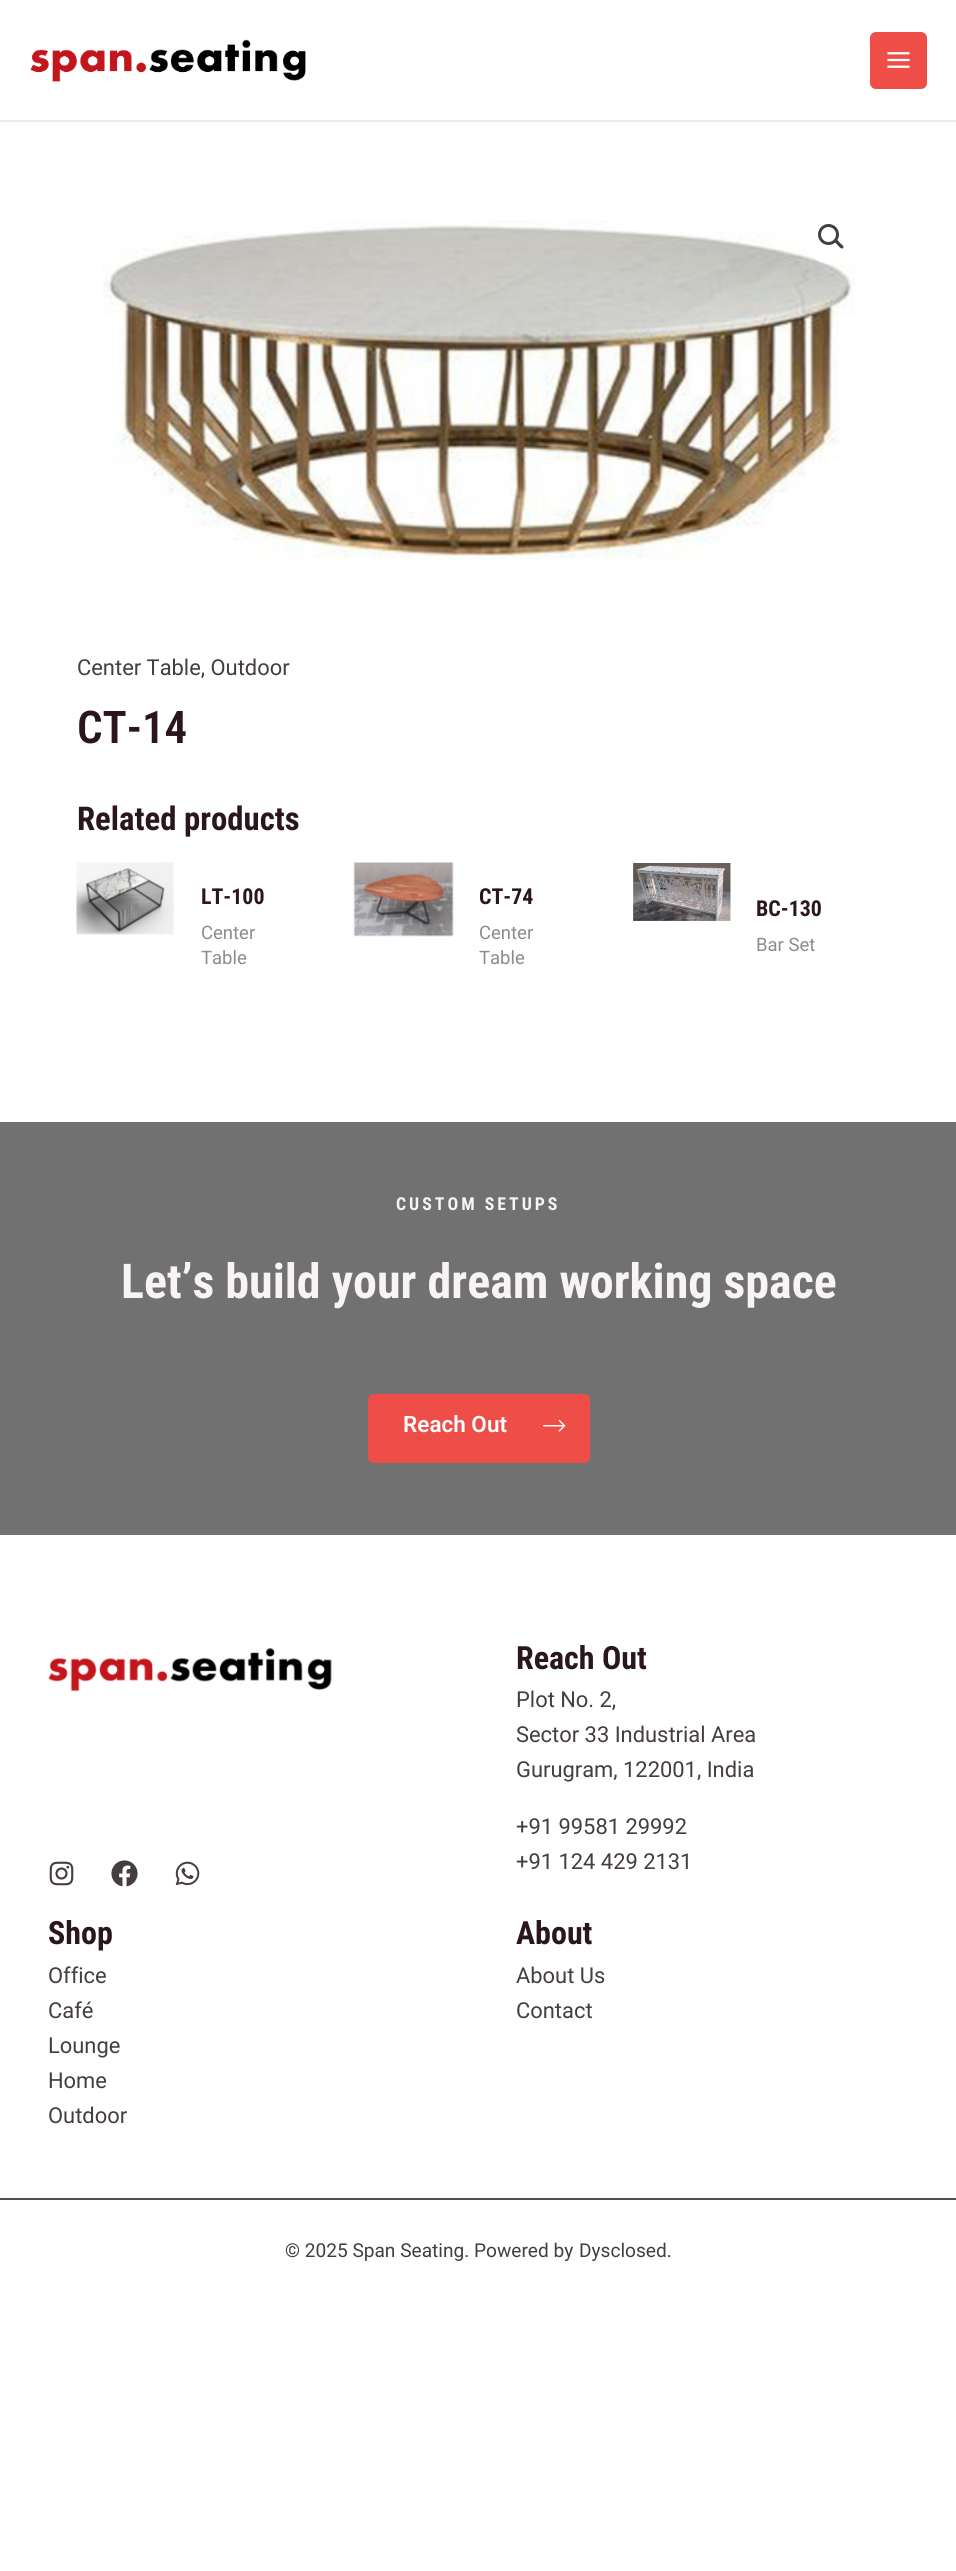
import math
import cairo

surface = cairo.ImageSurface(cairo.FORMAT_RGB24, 956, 2571)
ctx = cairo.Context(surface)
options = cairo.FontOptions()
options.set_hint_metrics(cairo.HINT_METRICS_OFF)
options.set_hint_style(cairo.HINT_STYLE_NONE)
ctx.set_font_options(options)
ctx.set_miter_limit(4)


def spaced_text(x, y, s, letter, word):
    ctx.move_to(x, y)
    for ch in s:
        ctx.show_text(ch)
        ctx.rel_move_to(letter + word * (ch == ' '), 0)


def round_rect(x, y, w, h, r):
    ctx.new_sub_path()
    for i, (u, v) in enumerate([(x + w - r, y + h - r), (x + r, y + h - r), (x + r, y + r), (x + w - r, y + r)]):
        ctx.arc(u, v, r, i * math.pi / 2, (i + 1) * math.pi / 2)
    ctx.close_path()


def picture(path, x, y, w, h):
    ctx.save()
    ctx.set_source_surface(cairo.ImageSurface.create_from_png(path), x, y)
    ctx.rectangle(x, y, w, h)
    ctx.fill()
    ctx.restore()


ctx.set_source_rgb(1, 1, 1)
ctx.paint()
ctx.set_source_rgb(0.918, 0.918, 0.918)
ctx.rectangle(0, 120, 956, 2)
ctx.fill()
picture("img1.png", 30, 39, 276, 43)
ctx.set_source_rgb(0.937, 0.302, 0.282)
round_rect(870, 32, 57, 57, 6)
ctx.fill()
picture("img2.png", 887, 52, 23, 16)
picture("img3.png", 102, 220, 753, 342)
ctx.set_source_rgb(1, 1, 1)
ctx.arc(831, 237, 27, 0, 2 * math.pi)
ctx.fill()
ctx.arc(828.5, 234.5, 9, 0, 2 * math.pi)
ctx.set_source_rgb(0.271, 0.243, 0.243)
ctx.set_line_width(3)
ctx.stroke()
ctx.new_path()
ctx.move_to(834.5, 239.5)
ctx.curve_to(836.5, 238, 839, 242, 840, 243)
ctx.curve_to(841, 244, 845, 246.5, 843, 248)
ctx.curve_to(841.5, 250, 838.5, 246, 837.5, 245)
ctx.curve_to(837, 244, 833, 241.5, 834.5, 239.5)
ctx.close_path()
ctx.fill()
ctx.select_font_face("Roboto")
ctx.set_font_size(21.9)
ctx.move_to(77, 675)
ctx.show_text("Center Table, Outdoor")
ctx.select_font_face("Roboto Condensed SemiBold")
ctx.set_font_size(45)
ctx.set_source_rgb(0.169, 0.086, 0.106)
ctx.move_to(77, 743)
ctx.show_text("CT-14")
ctx.select_font_face("Roboto Condensed", cairo.FONT_SLANT_NORMAL, cairo.FONT_WEIGHT_BOLD)
ctx.set_font_size(32.75)
ctx.move_to(77, 830)
ctx.show_text("Related products")
picture("img4.png", 76, 862, 98, 73)
ctx.set_font_size(21.9)
ctx.move_to(201, 904)
ctx.show_text("LT-100")
ctx.select_font_face("Roboto")
ctx.set_font_size(18.5)
ctx.set_source_rgb(0.561, 0.545, 0.545)
ctx.move_to(201, 939)
ctx.show_text("Center")
ctx.move_to(201, 964)
ctx.show_text("Table")
picture("img5.png", 353, 862, 101, 75)
ctx.select_font_face("Roboto Condensed", cairo.FONT_SLANT_NORMAL, cairo.FONT_WEIGHT_BOLD)
ctx.set_font_size(21.9)
ctx.set_source_rgb(0.169, 0.086, 0.106)
ctx.move_to(479, 904)
ctx.show_text("CT-74")
ctx.select_font_face("Roboto")
ctx.set_font_size(18.5)
ctx.set_source_rgb(0.561, 0.545, 0.545)
ctx.move_to(479, 939)
ctx.show_text("Center")
ctx.move_to(479, 964)
ctx.show_text("Table")
picture("img6.png", 633, 863, 98, 58)
ctx.select_font_face("Roboto Condensed", cairo.FONT_SLANT_NORMAL, cairo.FONT_WEIGHT_BOLD)
ctx.set_font_size(21.9)
ctx.set_source_rgb(0.169, 0.086, 0.106)
ctx.move_to(756, 916)
ctx.show_text("BC-130")
ctx.select_font_face("Roboto")
ctx.set_font_size(18.5)
ctx.set_source_rgb(0.561, 0.545, 0.545)
ctx.move_to(756, 951)
ctx.show_text("Bar Set")
ctx.set_source_rgb(0.443, 0.443, 0.443)
ctx.rectangle(0, 1122, 956, 413)
ctx.fill()
ctx.select_font_face("Roboto Condensed", cairo.FONT_SLANT_NORMAL, cairo.FONT_WEIGHT_BOLD)
ctx.set_font_size(17.75)
ctx.set_source_rgb(0.969, 0.953, 0.961)
spaced_text(396, 1210, "CUSTOM SETUPS", 3, 0)
ctx.set_font_size(48)
ctx.move_to(121, 1298)
ctx.show_text("Let’s build your dream working space")
ctx.set_source_rgb(0.937, 0.302, 0.282)
round_rect(369, 1395, 220, 67, 5)
ctx.fill_preserve()
ctx.set_line_width(2)
ctx.stroke()
ctx.select_font_face("Roboto SemiBold")
ctx.set_font_size(22.5)
ctx.set_source_rgb(1, 1, 1)
ctx.move_to(403, 1432)
ctx.show_text("Reach Out")
picture("img7.png", 543, 1419, 23, 13)
picture("img8.png", 48, 1647, 284, 45)
picture("img9.png", 49, 1861, 25, 25)
picture("img10.png", 111, 1860, 27, 27)
picture("img11.png", 175, 1861, 25, 25)
ctx.select_font_face("Roboto Condensed", cairo.FONT_SLANT_NORMAL, cairo.FONT_WEIGHT_BOLD)
ctx.set_font_size(32)
ctx.set_source_rgb(0.169, 0.086, 0.106)
ctx.move_to(516, 1669)
ctx.show_text("Reach Out")
ctx.select_font_face("Roboto")
ctx.set_font_size(21.9)
ctx.set_source_rgb(0.271, 0.243, 0.243)
ctx.move_to(516, 1707)
ctx.show_text("Plot No. 2,")
ctx.move_to(516, 1742)
ctx.show_text("Sector 33 Industrial Area")
ctx.move_to(516, 1777)
ctx.show_text("Gurugram, 122001, India")
ctx.move_to(516, 1834)
ctx.show_text("+91 99581 29992")
ctx.move_to(516, 1869)
ctx.show_text("+91 124 429 2131")
ctx.select_font_face("Roboto Condensed", cairo.FONT_SLANT_NORMAL, cairo.FONT_WEIGHT_BOLD)
ctx.set_font_size(32)
ctx.set_source_rgb(0.169, 0.086, 0.106)
ctx.move_to(48, 1944)
ctx.show_text("Shop")
ctx.select_font_face("Roboto")
ctx.set_font_size(21.9)
ctx.set_source_rgb(0.271, 0.243, 0.243)
ctx.move_to(48, 1983)
ctx.show_text("Office")
ctx.move_to(48, 2018)
ctx.show_text("Café")
ctx.move_to(48, 2053)
ctx.show_text("Lounge")
ctx.move_to(48, 2088)
ctx.show_text("Home")
ctx.move_to(48, 2123)
ctx.show_text("Outdoor")
ctx.select_font_face("Roboto Condensed", cairo.FONT_SLANT_NORMAL, cairo.FONT_WEIGHT_BOLD)
ctx.set_font_size(32)
ctx.set_source_rgb(0.169, 0.086, 0.106)
ctx.move_to(516, 1944)
ctx.show_text("About")
ctx.select_font_face("Roboto")
ctx.set_font_size(21.9)
ctx.set_source_rgb(0.271, 0.243, 0.243)
ctx.move_to(516, 1983)
ctx.show_text("About Us")
ctx.move_to(516, 2018)
ctx.show_text("Contact")
ctx.set_source_rgb(0.294, 0.31, 0.345)
ctx.rectangle(0, 2198, 956, 2)
ctx.fill()
ctx.set_font_size(19.1)
ctx.set_source_rgb(0.271, 0.243, 0.243)
ctx.move_to(285, 2257)
ctx.show_text("© 2025 Span Seating. Powered by")
ctx.move_to(579, 2257)
ctx.show_text("Dysclosed.")
surface.write_to_png("page.png")
